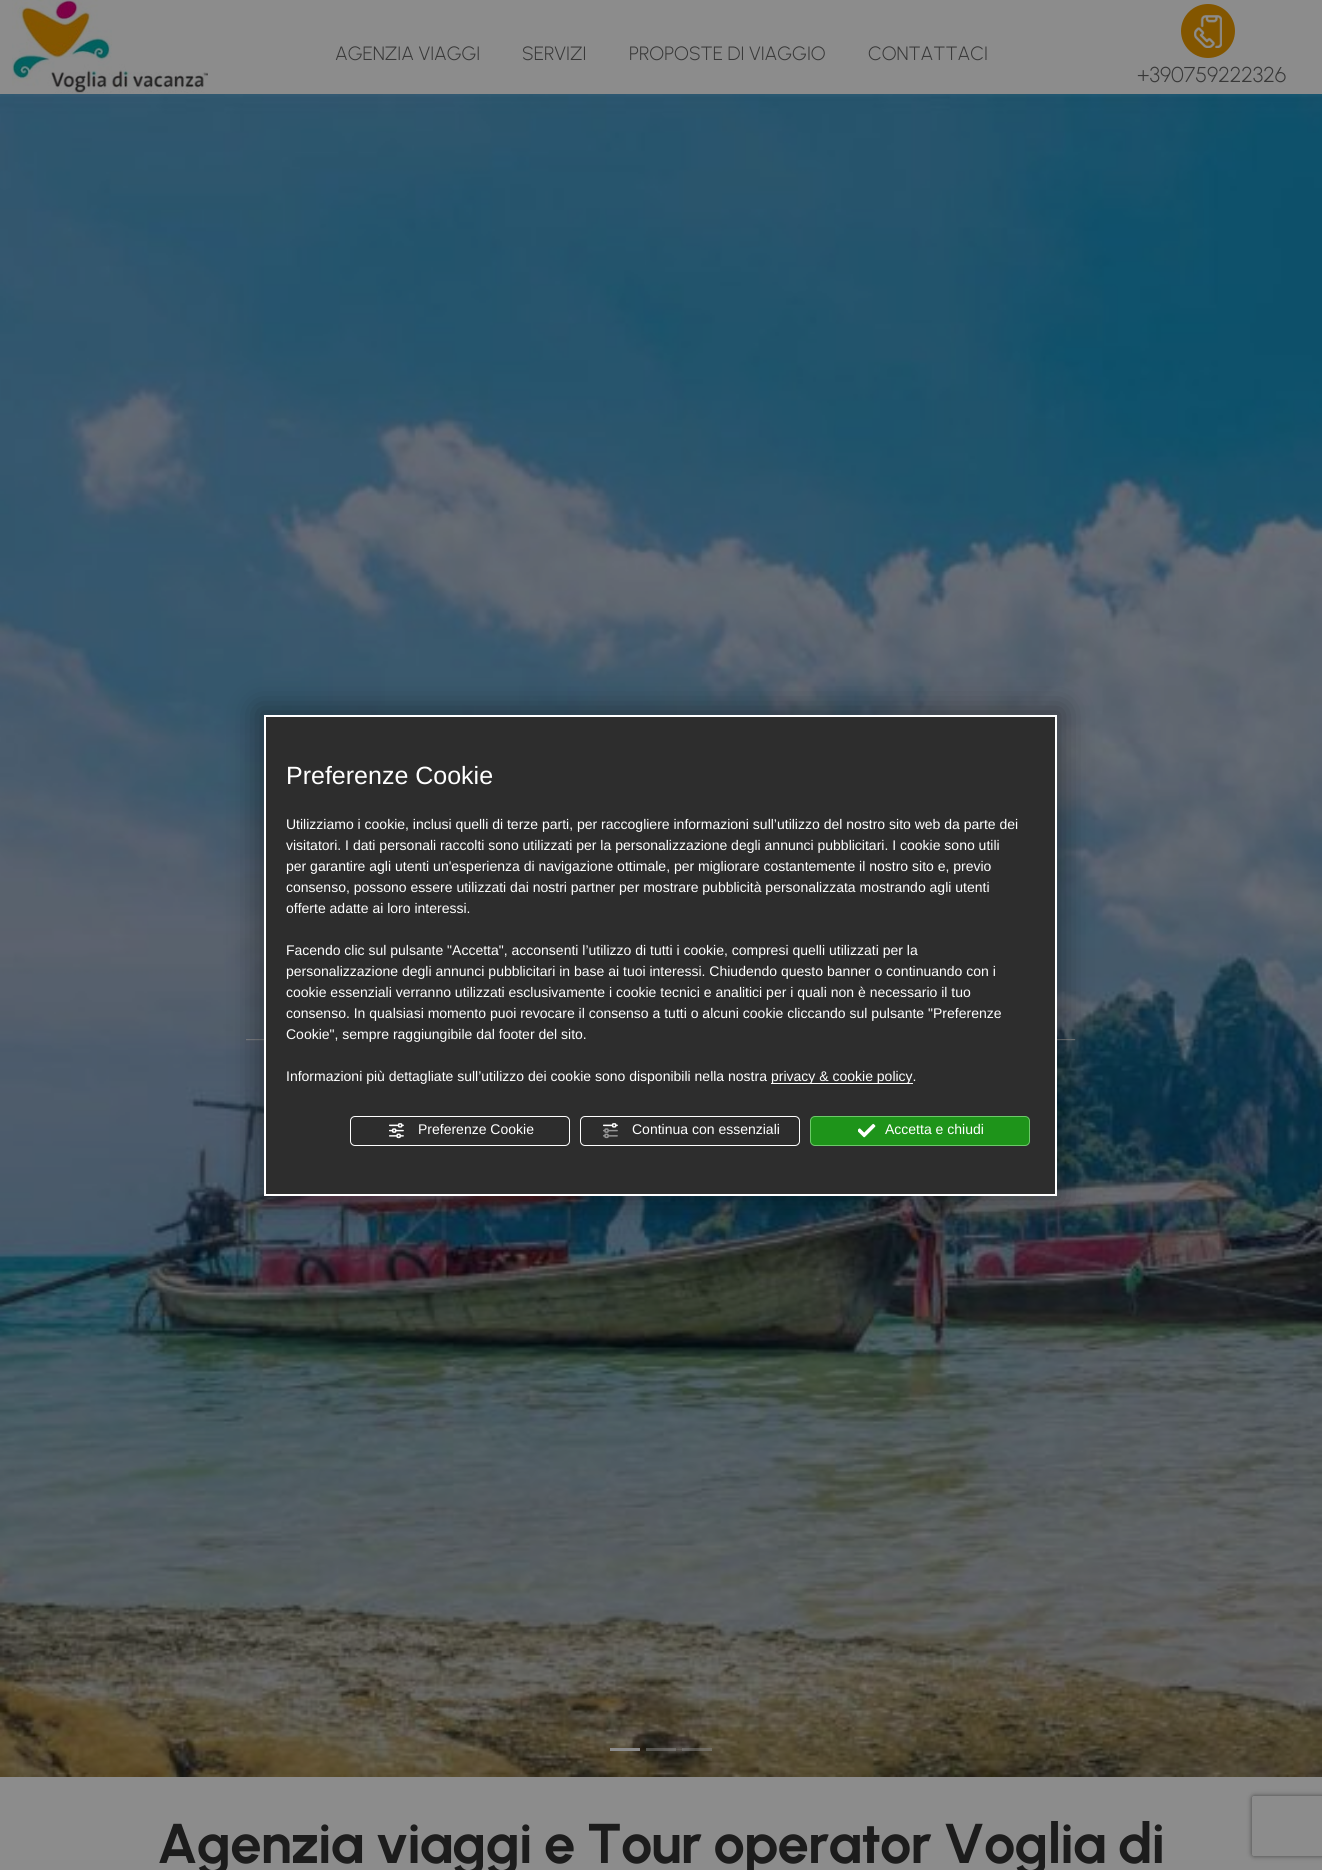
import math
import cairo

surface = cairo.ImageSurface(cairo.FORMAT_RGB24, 1322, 1870)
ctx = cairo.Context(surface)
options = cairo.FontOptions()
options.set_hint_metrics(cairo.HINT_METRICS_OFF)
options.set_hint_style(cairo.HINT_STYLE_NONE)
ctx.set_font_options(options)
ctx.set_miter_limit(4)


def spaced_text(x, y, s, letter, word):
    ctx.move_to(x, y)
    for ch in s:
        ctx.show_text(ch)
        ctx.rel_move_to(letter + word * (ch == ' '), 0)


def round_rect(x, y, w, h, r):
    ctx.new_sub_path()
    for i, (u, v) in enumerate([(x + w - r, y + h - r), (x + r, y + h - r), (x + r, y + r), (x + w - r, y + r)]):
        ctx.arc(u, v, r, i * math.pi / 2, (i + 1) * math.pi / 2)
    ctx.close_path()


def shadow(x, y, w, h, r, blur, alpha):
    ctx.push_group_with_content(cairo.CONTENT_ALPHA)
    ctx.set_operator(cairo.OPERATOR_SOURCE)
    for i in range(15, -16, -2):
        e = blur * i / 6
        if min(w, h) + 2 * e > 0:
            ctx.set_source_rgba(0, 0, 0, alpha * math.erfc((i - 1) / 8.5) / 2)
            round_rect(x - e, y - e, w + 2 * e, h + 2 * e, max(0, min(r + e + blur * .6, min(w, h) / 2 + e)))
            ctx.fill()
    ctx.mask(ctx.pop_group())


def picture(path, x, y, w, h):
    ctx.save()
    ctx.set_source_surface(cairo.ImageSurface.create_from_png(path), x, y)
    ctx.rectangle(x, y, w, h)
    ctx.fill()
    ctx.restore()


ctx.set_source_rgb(0.549, 0.549, 0.549)
ctx.paint()
picture("img1.png", 12, 0, 196, 93)
ctx.select_font_face("Urbanist Light")
ctx.set_font_size(19.25)
ctx.set_source_rgb(0.22, 0.22, 0.22)
ctx.move_to(335, 60)
ctx.show_text("AGENZIA VIAGGI")
ctx.move_to(522, 60)
ctx.show_text("SERVIZI")
ctx.move_to(629, 60)
ctx.show_text("PROPOSTE DI VIAGGIO")
ctx.move_to(868, 60)
ctx.show_text("CONTATTACI")
ctx.set_source_rgb(0.514, 0.337, 0)
ctx.new_path()
ctx.arc(1208, 31, 27, 0, 2 * math.pi)
ctx.fill()
picture("img2.png", 1194, 15, 28, 33)
ctx.set_font_size(21.5)
ctx.set_source_rgb(0.22, 0.22, 0.22)
ctx.move_to(1137, 82)
ctx.show_text("+390759222326")
picture("img3.png", 0, 94, 1322, 1683)
picture("img4.png", 246, 1039, 830, 2)
ctx.set_source_rgb(0.549, 0.549, 0.549)
ctx.rectangle(610, 1748, 30, 3)
ctx.fill()
ctx.set_source_rgba(0.549, 0.549, 0.549, 0.5)
ctx.rectangle(646, 1748, 30, 3)
ctx.fill()
ctx.rectangle(682, 1748, 30, 3)
ctx.fill()
ctx.set_source_rgb(0, 0, 0)
shadow(257, 708, 807, 495, 0, 14.5, 0.38)
ctx.set_source_rgb(0.176, 0.176, 0.176)
ctx.rectangle(265, 716, 791, 479)
ctx.fill_preserve()
ctx.set_source_rgb(1, 1, 1)
ctx.stroke()
ctx.select_font_face("Liberation Sans")
ctx.set_font_size(25)
ctx.move_to(286, 784)
ctx.show_text("Preferenze Cookie")
ctx.set_font_size(14)
ctx.move_to(286, 829)
ctx.show_text("Utilizziamo i cookie, inclusi quelli di terze parti, per raccogliere informazioni sull’utilizzo del nostro sito web da parte dei")
ctx.move_to(286, 850)
ctx.show_text("visitatori. I dati personali raccolti sono utilizzati per la personalizzazione degli annunci pubblicitari. I cookie sono utili")
ctx.move_to(286, 871)
ctx.show_text("per garantire agli utenti un'esperienza di navigazione ottimale, per migliorare costantemente il nostro sito e, previo")
ctx.move_to(286, 892)
ctx.show_text("consenso, possono essere utilizzati dai nostri partner per mostrare pubblicità personalizzata mostrando agli utenti")
ctx.move_to(286, 913)
ctx.show_text("offerte adatte ai loro interessi.")
ctx.move_to(286, 955)
ctx.show_text("Facendo clic sul pulsante \"Accetta\", acconsenti l’utilizzo di tutti i cookie, compresi quelli utilizzati per la")
ctx.move_to(286, 976)
ctx.show_text("personalizzazione degli annunci pubblicitari in base ai tuoi interessi. Chiudendo questo banner o continuando con i")
ctx.move_to(286, 997)
ctx.show_text("cookie essenziali verranno utilizzati esclusivamente i cookie tecnici e analitici per i quali non è necessario il tuo")
ctx.move_to(286, 1018)
ctx.show_text("consenso. In qualsiasi momento puoi revocare il consenso a tutti o alcuni cookie cliccando sul pulsante \"Preferenze")
ctx.move_to(286, 1039)
ctx.show_text("Cookie\", sempre raggiungibile dal footer del sito.")
ctx.move_to(286, 1081)
ctx.show_text("Informazioni più dettagliate sull’utilizzo dei cookie sono disponibili nella nostra")
ctx.rectangle(771, 1083, 142, 1)
ctx.fill()
ctx.move_to(771, 1081)
ctx.show_text("privacy & cookie policy.")
round_rect(350.5, 1116.5, 219, 29, 4.5)
ctx.set_line_width(1)
ctx.stroke()
picture("img5.png", 389, 1123, 15, 16)
ctx.move_to(418, 1134)
ctx.show_text("Preferenze Cookie")
round_rect(580.5, 1116.5, 219, 29, 4.5)
ctx.stroke()
picture("img6.png", 603, 1123, 15, 16)
ctx.move_to(632, 1134)
ctx.show_text("Continua con essenziali")
ctx.set_source_rgb(0.118, 0.58, 0.102)
round_rect(810.5, 1116.5, 219, 29, 4.5)
ctx.fill_preserve()
ctx.set_source_rgb(0.424, 0.792, 0.412)
ctx.stroke()
picture("img7.png", 858, 1123, 18, 15)
ctx.set_source_rgb(1, 1, 1)
ctx.move_to(885, 1134)
ctx.show_text("Accetta e chiudi")
ctx.select_font_face("Urbanist", cairo.FONT_SLANT_NORMAL, cairo.FONT_WEIGHT_BOLD)
ctx.set_font_size(56)
ctx.set_source_rgb(0.11, 0.11, 0.11)
spaced_text(157, 1863, "Agenzia viaggi e Tour operator Voglia di", -1, 0)
ctx.save()
ctx.set_fill_rule(cairo.FILL_RULE_EVEN_ODD)
ctx.new_path()
ctx.move_to(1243, 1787)
ctx.line_to(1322, 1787)
ctx.line_to(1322, 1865)
ctx.line_to(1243, 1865)
ctx.close_path()
ctx.move_to(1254, 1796)
ctx.line_to(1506, 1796)
ctx.curve_to(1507, 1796, 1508, 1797, 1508, 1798)
ctx.line_to(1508, 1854)
ctx.curve_to(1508, 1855, 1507, 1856, 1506, 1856)
ctx.line_to(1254, 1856)
ctx.curve_to(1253, 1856, 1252, 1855, 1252, 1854)
ctx.line_to(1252, 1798)
ctx.curve_to(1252, 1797, 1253, 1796, 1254, 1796)
ctx.close_path()
ctx.clip()
ctx.set_source_rgb(0.275, 0.275, 0.275)
shadow(1252, 1796, 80, 60, 2, 2.5, 1)
ctx.restore()
surface.write_to_png("page.png")
